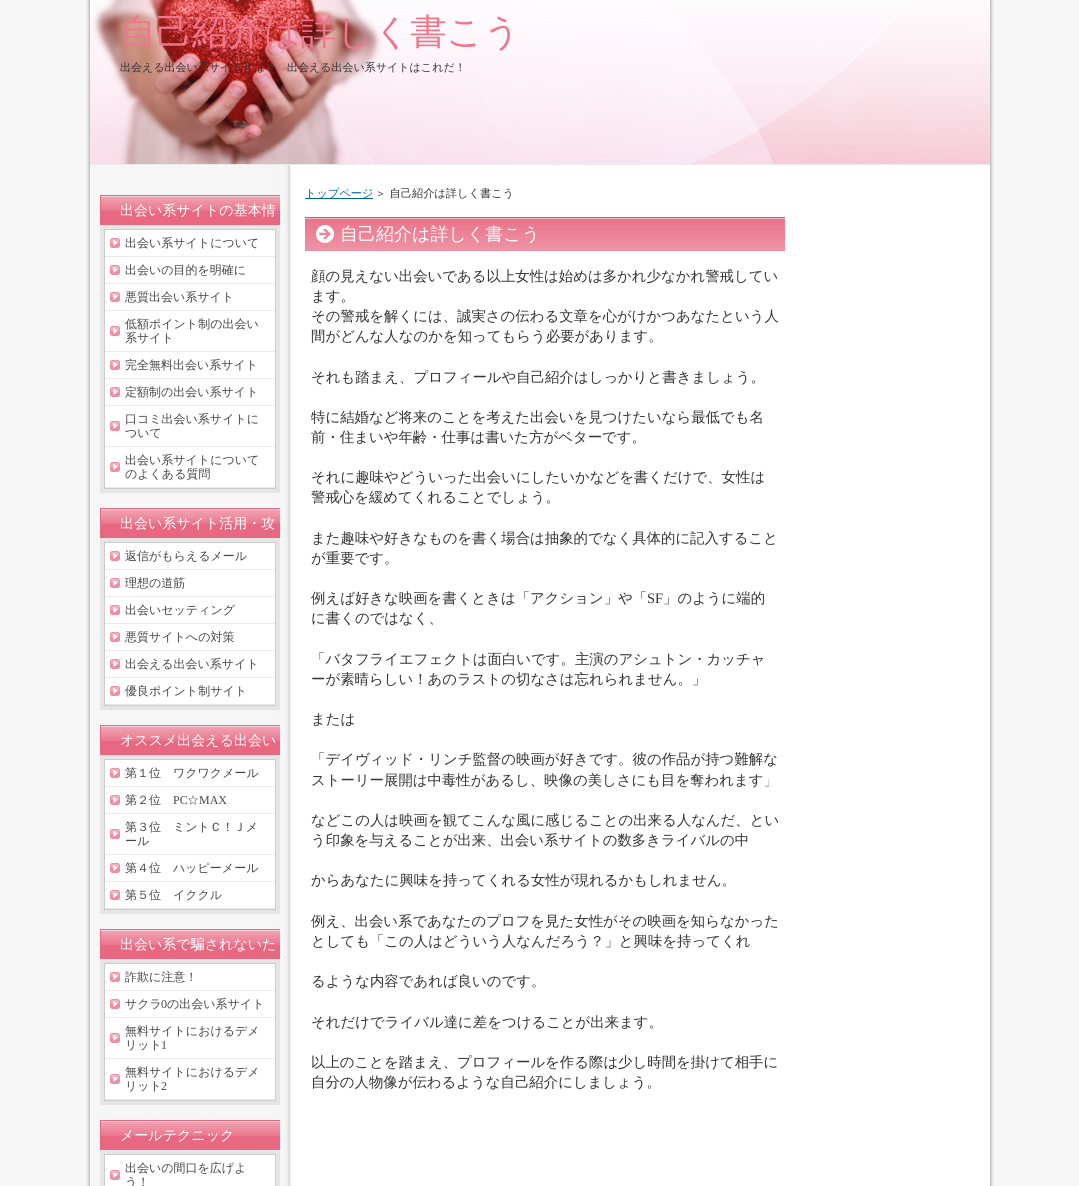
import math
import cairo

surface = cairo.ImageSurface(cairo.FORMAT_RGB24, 1079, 1186)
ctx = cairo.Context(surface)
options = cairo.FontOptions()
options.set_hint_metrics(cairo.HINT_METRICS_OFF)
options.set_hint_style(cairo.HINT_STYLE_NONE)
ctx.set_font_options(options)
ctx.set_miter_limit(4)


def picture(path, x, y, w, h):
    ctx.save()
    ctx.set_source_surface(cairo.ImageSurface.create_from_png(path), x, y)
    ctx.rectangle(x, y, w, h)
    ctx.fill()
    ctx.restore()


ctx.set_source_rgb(0.961, 0.961, 0.961)
ctx.paint()
picture("img1.png", 86, 0, 908, 1186)
picture("img2.png", 90, 0, 900, 164)
ctx.set_source_rgb(0.922, 0.922, 0.922)
ctx.rectangle(90, 164, 900, 1)
ctx.fill()
ctx.select_font_face("WenQuanYi Zen Hei Medium")
ctx.set_font_size(36)
ctx.set_source_rgb(0.933, 0.467, 0.557)
ctx.move_to(120, 44)
ctx.show_text("自己紹介は詳しく書こう")
ctx.set_font_size(11)
ctx.set_source_rgb(0.2, 0.2, 0.2)
ctx.move_to(120, 71)
ctx.show_text("出会える出会い系サイトとは？　出会える出会い系サイトはこれだ！")
picture("img3.png", 90, 165, 201, 1021)
picture("img4.png", 100, 195, 180, 30)
ctx.set_font_size(14)
ctx.set_source_rgb(1, 1, 1)
ctx.move_to(120, 215)
ctx.show_text("出会い系サイトの基本情")
ctx.set_source_rgb(0.898, 0.898, 0.898)
ctx.rectangle(100, 225, 180, 268)
ctx.fill()
ctx.rectangle(104.5, 229.5, 171, 259)
ctx.set_source_rgb(0.8, 0.8, 0.8)
ctx.set_line_width(1)
ctx.stroke()
ctx.set_source_rgb(0.914, 0.914, 0.914)
ctx.rectangle(105, 256, 170, 1)
ctx.fill()
ctx.set_source_rgb(1, 1, 1)
ctx.rectangle(105, 230, 170, 26)
ctx.fill()
picture("img5.png", 110, 238, 10, 10)
ctx.set_font_size(12)
ctx.set_source_rgb(0.271, 0.271, 0.271)
ctx.move_to(125, 247)
ctx.show_text("出会い系サイトについて")
ctx.set_source_rgb(0.914, 0.914, 0.914)
ctx.rectangle(105, 283, 170, 1)
ctx.fill()
ctx.set_source_rgb(1, 1, 1)
ctx.rectangle(105, 257, 170, 26)
ctx.fill()
picture("img5.png", 110, 265, 10, 10)
ctx.set_source_rgb(0.271, 0.271, 0.271)
ctx.move_to(125, 274)
ctx.show_text("出会いの目的を明確に")
ctx.set_source_rgb(0.914, 0.914, 0.914)
ctx.rectangle(105, 310, 170, 1)
ctx.fill()
ctx.set_source_rgb(1, 1, 1)
ctx.rectangle(105, 284, 170, 26)
ctx.fill()
picture("img5.png", 110, 292, 10, 10)
ctx.set_source_rgb(0.271, 0.271, 0.271)
ctx.move_to(125, 301)
ctx.show_text("悪質出会い系サイト")
ctx.set_source_rgb(0.914, 0.914, 0.914)
ctx.rectangle(105, 351, 170, 1)
ctx.fill()
ctx.set_source_rgb(1, 1, 1)
ctx.rectangle(105, 311, 170, 40)
ctx.fill()
picture("img5.png", 110, 326, 10, 10)
ctx.set_source_rgb(0.271, 0.271, 0.271)
ctx.move_to(125, 328)
ctx.show_text("低額ポイント制の出会い")
ctx.move_to(125, 342)
ctx.show_text("系サイト")
ctx.set_source_rgb(0.914, 0.914, 0.914)
ctx.rectangle(105, 378, 170, 1)
ctx.fill()
ctx.set_source_rgb(1, 1, 1)
ctx.rectangle(105, 352, 170, 26)
ctx.fill()
picture("img5.png", 110, 360, 10, 10)
ctx.set_source_rgb(0.271, 0.271, 0.271)
ctx.move_to(125, 369)
ctx.show_text("完全無料出会い系サイト")
ctx.set_source_rgb(0.914, 0.914, 0.914)
ctx.rectangle(105, 405, 170, 1)
ctx.fill()
ctx.set_source_rgb(1, 1, 1)
ctx.rectangle(105, 379, 170, 26)
ctx.fill()
picture("img5.png", 110, 387, 10, 10)
ctx.set_source_rgb(0.271, 0.271, 0.271)
ctx.move_to(125, 396)
ctx.show_text("定額制の出会い系サイト")
ctx.set_source_rgb(0.914, 0.914, 0.914)
ctx.rectangle(105, 446, 170, 1)
ctx.fill()
ctx.set_source_rgb(1, 1, 1)
ctx.rectangle(105, 406, 170, 40)
ctx.fill()
picture("img5.png", 110, 421, 10, 10)
ctx.set_source_rgb(0.271, 0.271, 0.271)
ctx.move_to(125, 423)
ctx.show_text("口コミ出会い系サイトに")
ctx.move_to(125, 437)
ctx.show_text("ついて")
ctx.set_source_rgb(0.914, 0.914, 0.914)
ctx.rectangle(105, 487, 170, 1)
ctx.fill()
ctx.set_source_rgb(1, 1, 1)
ctx.rectangle(105, 447, 170, 40)
ctx.fill()
picture("img5.png", 110, 462, 10, 10)
ctx.set_source_rgb(0.271, 0.271, 0.271)
ctx.move_to(125, 464)
ctx.show_text("出会い系サイトについて")
ctx.move_to(125, 478)
ctx.show_text("のよくある質問")
picture("img4.png", 100, 508, 180, 30)
ctx.set_font_size(14)
ctx.set_source_rgb(1, 1, 1)
ctx.move_to(120, 528)
ctx.show_text("出会い系サイト活用・攻")
ctx.set_source_rgb(0.898, 0.898, 0.898)
ctx.rectangle(100, 538, 180, 172)
ctx.fill()
ctx.rectangle(104.5, 542.5, 171, 163)
ctx.set_source_rgb(0.8, 0.8, 0.8)
ctx.stroke()
ctx.set_source_rgb(0.914, 0.914, 0.914)
ctx.rectangle(105, 569, 170, 1)
ctx.fill()
ctx.set_source_rgb(1, 1, 1)
ctx.rectangle(105, 543, 170, 26)
ctx.fill()
picture("img5.png", 110, 551, 10, 10)
ctx.set_font_size(12)
ctx.set_source_rgb(0.271, 0.271, 0.271)
ctx.move_to(125, 560)
ctx.show_text("返信がもらえるメール")
ctx.set_source_rgb(0.914, 0.914, 0.914)
ctx.rectangle(105, 596, 170, 1)
ctx.fill()
ctx.set_source_rgb(1, 1, 1)
ctx.rectangle(105, 570, 170, 26)
ctx.fill()
picture("img5.png", 110, 578, 10, 10)
ctx.set_source_rgb(0.271, 0.271, 0.271)
ctx.move_to(125, 587)
ctx.show_text("理想の道筋")
ctx.set_source_rgb(0.914, 0.914, 0.914)
ctx.rectangle(105, 623, 170, 1)
ctx.fill()
ctx.set_source_rgb(1, 1, 1)
ctx.rectangle(105, 597, 170, 26)
ctx.fill()
picture("img5.png", 110, 605, 10, 10)
ctx.set_source_rgb(0.271, 0.271, 0.271)
ctx.move_to(125, 614)
ctx.show_text("出会いセッティング")
ctx.set_source_rgb(0.914, 0.914, 0.914)
ctx.rectangle(105, 650, 170, 1)
ctx.fill()
ctx.set_source_rgb(1, 1, 1)
ctx.rectangle(105, 624, 170, 26)
ctx.fill()
picture("img5.png", 110, 632, 10, 10)
ctx.set_source_rgb(0.271, 0.271, 0.271)
ctx.move_to(125, 641)
ctx.show_text("悪質サイトへの対策")
ctx.set_source_rgb(0.914, 0.914, 0.914)
ctx.rectangle(105, 677, 170, 1)
ctx.fill()
ctx.set_source_rgb(1, 1, 1)
ctx.rectangle(105, 651, 170, 26)
ctx.fill()
picture("img5.png", 110, 659, 10, 10)
ctx.set_source_rgb(0.271, 0.271, 0.271)
ctx.move_to(125, 668)
ctx.show_text("出会える出会い系サイト")
ctx.set_source_rgb(0.914, 0.914, 0.914)
ctx.rectangle(105, 704, 170, 1)
ctx.fill()
ctx.set_source_rgb(1, 1, 1)
ctx.rectangle(105, 678, 170, 26)
ctx.fill()
picture("img5.png", 110, 686, 10, 10)
ctx.set_source_rgb(0.271, 0.271, 0.271)
ctx.move_to(125, 695)
ctx.show_text("優良ポイント制サイト")
picture("img4.png", 100, 725, 180, 30)
ctx.set_font_size(14)
ctx.set_source_rgb(1, 1, 1)
ctx.move_to(120, 745)
ctx.show_text("オススメ出会える出会い")
ctx.set_source_rgb(0.898, 0.898, 0.898)
ctx.rectangle(100, 755, 180, 159)
ctx.fill()
ctx.rectangle(104.5, 759.5, 171, 150)
ctx.set_source_rgb(0.8, 0.8, 0.8)
ctx.stroke()
ctx.set_source_rgb(0.914, 0.914, 0.914)
ctx.rectangle(105, 786, 170, 1)
ctx.fill()
ctx.set_source_rgb(1, 1, 1)
ctx.rectangle(105, 760, 170, 26)
ctx.fill()
picture("img5.png", 110, 768, 10, 10)
ctx.set_font_size(12)
ctx.set_source_rgb(0.271, 0.271, 0.271)
ctx.move_to(125, 777)
ctx.show_text("第１位　ワクワクメール")
ctx.set_source_rgb(0.914, 0.914, 0.914)
ctx.rectangle(105, 813, 170, 1)
ctx.fill()
ctx.set_source_rgb(1, 1, 1)
ctx.rectangle(105, 787, 170, 26)
ctx.fill()
picture("img5.png", 110, 795, 10, 10)
ctx.set_source_rgb(0.271, 0.271, 0.271)
ctx.move_to(125, 804)
ctx.show_text("第２位")
ctx.select_font_face("Liberation Serif")
ctx.move_to(173, 804)
ctx.show_text("PC")
ctx.select_font_face("WenQuanYi Zen Hei Medium")
ctx.move_to(187, 804)
ctx.show_text("☆")
ctx.select_font_face("Liberation Serif")
ctx.move_to(199, 804)
ctx.show_text("MAX")
ctx.set_source_rgb(0.914, 0.914, 0.914)
ctx.rectangle(105, 854, 170, 1)
ctx.fill()
ctx.set_source_rgb(1, 1, 1)
ctx.rectangle(105, 814, 170, 40)
ctx.fill()
picture("img5.png", 110, 829, 10, 10)
ctx.select_font_face("WenQuanYi Zen Hei Medium")
ctx.set_source_rgb(0.271, 0.271, 0.271)
ctx.move_to(125, 831)
ctx.show_text("第３位　ミントＣ！Ｊメ")
ctx.move_to(125, 845)
ctx.show_text("ール")
ctx.set_source_rgb(0.914, 0.914, 0.914)
ctx.rectangle(105, 881, 170, 1)
ctx.fill()
ctx.set_source_rgb(1, 1, 1)
ctx.rectangle(105, 855, 170, 26)
ctx.fill()
picture("img5.png", 110, 863, 10, 10)
ctx.set_source_rgb(0.271, 0.271, 0.271)
ctx.move_to(125, 872)
ctx.show_text("第４位　ハッピーメール")
ctx.set_source_rgb(0.914, 0.914, 0.914)
ctx.rectangle(105, 908, 170, 1)
ctx.fill()
ctx.set_source_rgb(1, 1, 1)
ctx.rectangle(105, 882, 170, 26)
ctx.fill()
picture("img5.png", 110, 890, 10, 10)
ctx.set_source_rgb(0.271, 0.271, 0.271)
ctx.move_to(125, 899)
ctx.show_text("第５位　イククル")
picture("img4.png", 100, 929, 180, 30)
ctx.set_font_size(14)
ctx.set_source_rgb(1, 1, 1)
ctx.move_to(120, 949)
ctx.show_text("出会い系で騙されないた")
ctx.set_source_rgb(0.898, 0.898, 0.898)
ctx.rectangle(100, 959, 180, 146)
ctx.fill()
ctx.rectangle(104.5, 963.5, 171, 137)
ctx.set_source_rgb(0.8, 0.8, 0.8)
ctx.stroke()
ctx.set_source_rgb(0.914, 0.914, 0.914)
ctx.rectangle(105, 990, 170, 1)
ctx.fill()
ctx.set_source_rgb(1, 1, 1)
ctx.rectangle(105, 964, 170, 26)
ctx.fill()
picture("img5.png", 110, 972, 10, 10)
ctx.set_font_size(12)
ctx.set_source_rgb(0.271, 0.271, 0.271)
ctx.move_to(125, 981)
ctx.show_text("詐欺に注意！")
ctx.set_source_rgb(0.914, 0.914, 0.914)
ctx.rectangle(105, 1017, 170, 1)
ctx.fill()
ctx.set_source_rgb(1, 1, 1)
ctx.rectangle(105, 991, 170, 26)
ctx.fill()
picture("img5.png", 110, 999, 10, 10)
ctx.set_source_rgb(0.271, 0.271, 0.271)
ctx.move_to(125, 1008)
ctx.show_text("サクラ")
ctx.select_font_face("Liberation Serif")
ctx.move_to(161, 1008)
ctx.show_text("0")
ctx.select_font_face("WenQuanYi Zen Hei Medium")
ctx.move_to(167, 1008)
ctx.show_text("の出会い系サイト")
ctx.set_source_rgb(0.914, 0.914, 0.914)
ctx.rectangle(105, 1058, 170, 1)
ctx.fill()
ctx.set_source_rgb(1, 1, 1)
ctx.rectangle(105, 1018, 170, 40)
ctx.fill()
picture("img5.png", 110, 1033, 10, 10)
ctx.set_source_rgb(0.271, 0.271, 0.271)
ctx.move_to(125, 1035)
ctx.show_text("無料サイトにおけるデメ")
ctx.move_to(125, 1049)
ctx.show_text("リット")
ctx.select_font_face("Liberation Serif")
ctx.move_to(161, 1049)
ctx.show_text("1")
ctx.set_source_rgb(0.914, 0.914, 0.914)
ctx.rectangle(105, 1099, 170, 1)
ctx.fill()
ctx.set_source_rgb(1, 1, 1)
ctx.rectangle(105, 1059, 170, 40)
ctx.fill()
picture("img5.png", 110, 1074, 10, 10)
ctx.select_font_face("WenQuanYi Zen Hei Medium")
ctx.set_source_rgb(0.271, 0.271, 0.271)
ctx.move_to(125, 1076)
ctx.show_text("無料サイトにおけるデメ")
ctx.move_to(125, 1090)
ctx.show_text("リット")
ctx.select_font_face("Liberation Serif")
ctx.move_to(161, 1090)
ctx.show_text("2")
picture("img4.png", 100, 1120, 180, 30)
ctx.select_font_face("WenQuanYi Zen Hei Medium")
ctx.set_font_size(14)
ctx.set_source_rgb(1, 1, 1)
ctx.move_to(120, 1140)
ctx.show_text("メールテクニック")
ctx.set_source_rgb(0.898, 0.898, 0.898)
ctx.rectangle(100, 1150, 180, 36)
ctx.fill()
ctx.rectangle(104.5, 1154.5, 171, 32)
ctx.set_source_rgb(0.8, 0.8, 0.8)
ctx.stroke()
ctx.set_source_rgb(1, 1, 1)
ctx.rectangle(105, 1155, 170, 31)
ctx.fill()
picture("img5.png", 110, 1170, 10, 10)
ctx.set_font_size(12)
ctx.set_source_rgb(0.271, 0.271, 0.271)
ctx.move_to(125, 1172)
ctx.show_text("出会いの間口を広げよ")
ctx.move_to(125, 1186)
ctx.show_text("う！")
ctx.set_source_rgb(0, 0.4, 0.6)
ctx.rectangle(305, 198, 68, 1)
ctx.fill()
ctx.set_font_size(11.2)
ctx.move_to(305, 197)
ctx.show_text("トップページ")
ctx.set_source_rgb(0.2, 0.2, 0.2)
ctx.move_to(375, 197)
ctx.show_text("＞ 自己紹介は詳しく書こう")
picture("img6.png", 305, 217, 480, 34)
ctx.set_font_size(18)
ctx.set_source_rgb(1, 1, 1)
ctx.move_to(340, 240)
ctx.show_text("自己紹介は詳しく書こう")
ctx.set_font_size(14.4)
ctx.set_source_rgb(0.2, 0.2, 0.2)
ctx.move_to(311, 281)
ctx.show_text("顔の見えない出会いである以上女性は始めは多かれ少なかれ警戒してい")
ctx.move_to(311, 301)
ctx.show_text("ます。")
ctx.move_to(311, 321)
ctx.show_text("その警戒を解くには、誠実さの伝わる文章を心がけかつあなたという人")
ctx.move_to(311, 341)
ctx.show_text("間がどんな人なのかを知ってもらう必要があります。")
ctx.move_to(311, 382)
ctx.show_text("それも踏まえ、プロフィールや自己紹介はしっかりと書きましょう。")
ctx.move_to(311, 422)
ctx.show_text("特に結婚など将来のことを考えた出会いを見つけたいなら最低でも名")
ctx.move_to(311, 442)
ctx.show_text("前・住まいや年齢・仕事は書いた方がベターです。")
ctx.move_to(311, 482)
ctx.show_text("それに趣味やどういった出会いにしたいかなどを書くだけで、女性は")
ctx.move_to(311, 502)
ctx.show_text("警戒心を緩めてくれることでしょう。")
ctx.move_to(311, 543)
ctx.show_text("また趣味や好きなものを書く場合は抽象的でなく具体的に記入すること")
ctx.move_to(311, 563)
ctx.show_text("が重要です。")
ctx.move_to(311, 603)
ctx.show_text("例えば好きな映画を書くときは「アクション」や「")
ctx.select_font_face("Liberation Serif")
ctx.move_to(647, 603)
ctx.show_text("SF")
ctx.select_font_face("WenQuanYi Zen Hei Medium")
ctx.move_to(663, 603)
ctx.show_text("」のように端的")
ctx.move_to(311, 623)
ctx.show_text("に書くのではなく、")
ctx.move_to(311, 664)
ctx.show_text("「バタフライエフェクトは面白いです。主演のアシュトン・カッチャ")
ctx.move_to(311, 684)
ctx.show_text("ーが素晴らしい！あのラストの切なさは忘れられません。」")
ctx.move_to(311, 724)
ctx.show_text("または")
ctx.move_to(311, 764)
ctx.show_text("「デイヴィッド・リンチ監督の映画が好きです。彼の作品が持つ難解な")
ctx.move_to(311, 785)
ctx.show_text("ストーリー展開は中毒性があるし、映像の美しさにも目を奪われます」")
ctx.move_to(311, 825)
ctx.show_text("などこの人は映画を観てこんな風に感じることの出来る人なんだ、とい")
ctx.move_to(311, 845)
ctx.show_text("う印象を与えることが出来、出会い系サイトの数多きライバルの中")
ctx.move_to(311, 885)
ctx.show_text("からあなたに興味を持ってくれる女性が現れるかもしれません。")
ctx.move_to(311, 926)
ctx.show_text("例え、出会い系であなたのプロフを見た女性がその映画を知らなかった")
ctx.move_to(311, 946)
ctx.show_text("としても「この人はどういう人なんだろう？」と興味を持ってくれ")
ctx.move_to(311, 986)
ctx.show_text("るような内容であれば良いのです。")
ctx.move_to(311, 1027)
ctx.show_text("それだけでライバル達に差をつけることが出来ます。")
ctx.move_to(311, 1067)
ctx.show_text("以上のことを踏まえ、プロフィールを作る際は少し時間を掛けて相手に")
ctx.move_to(311, 1087)
ctx.show_text("自分の人物像が伝わるような自己紹介にしましょう。")
surface.write_to_png("page.png")
